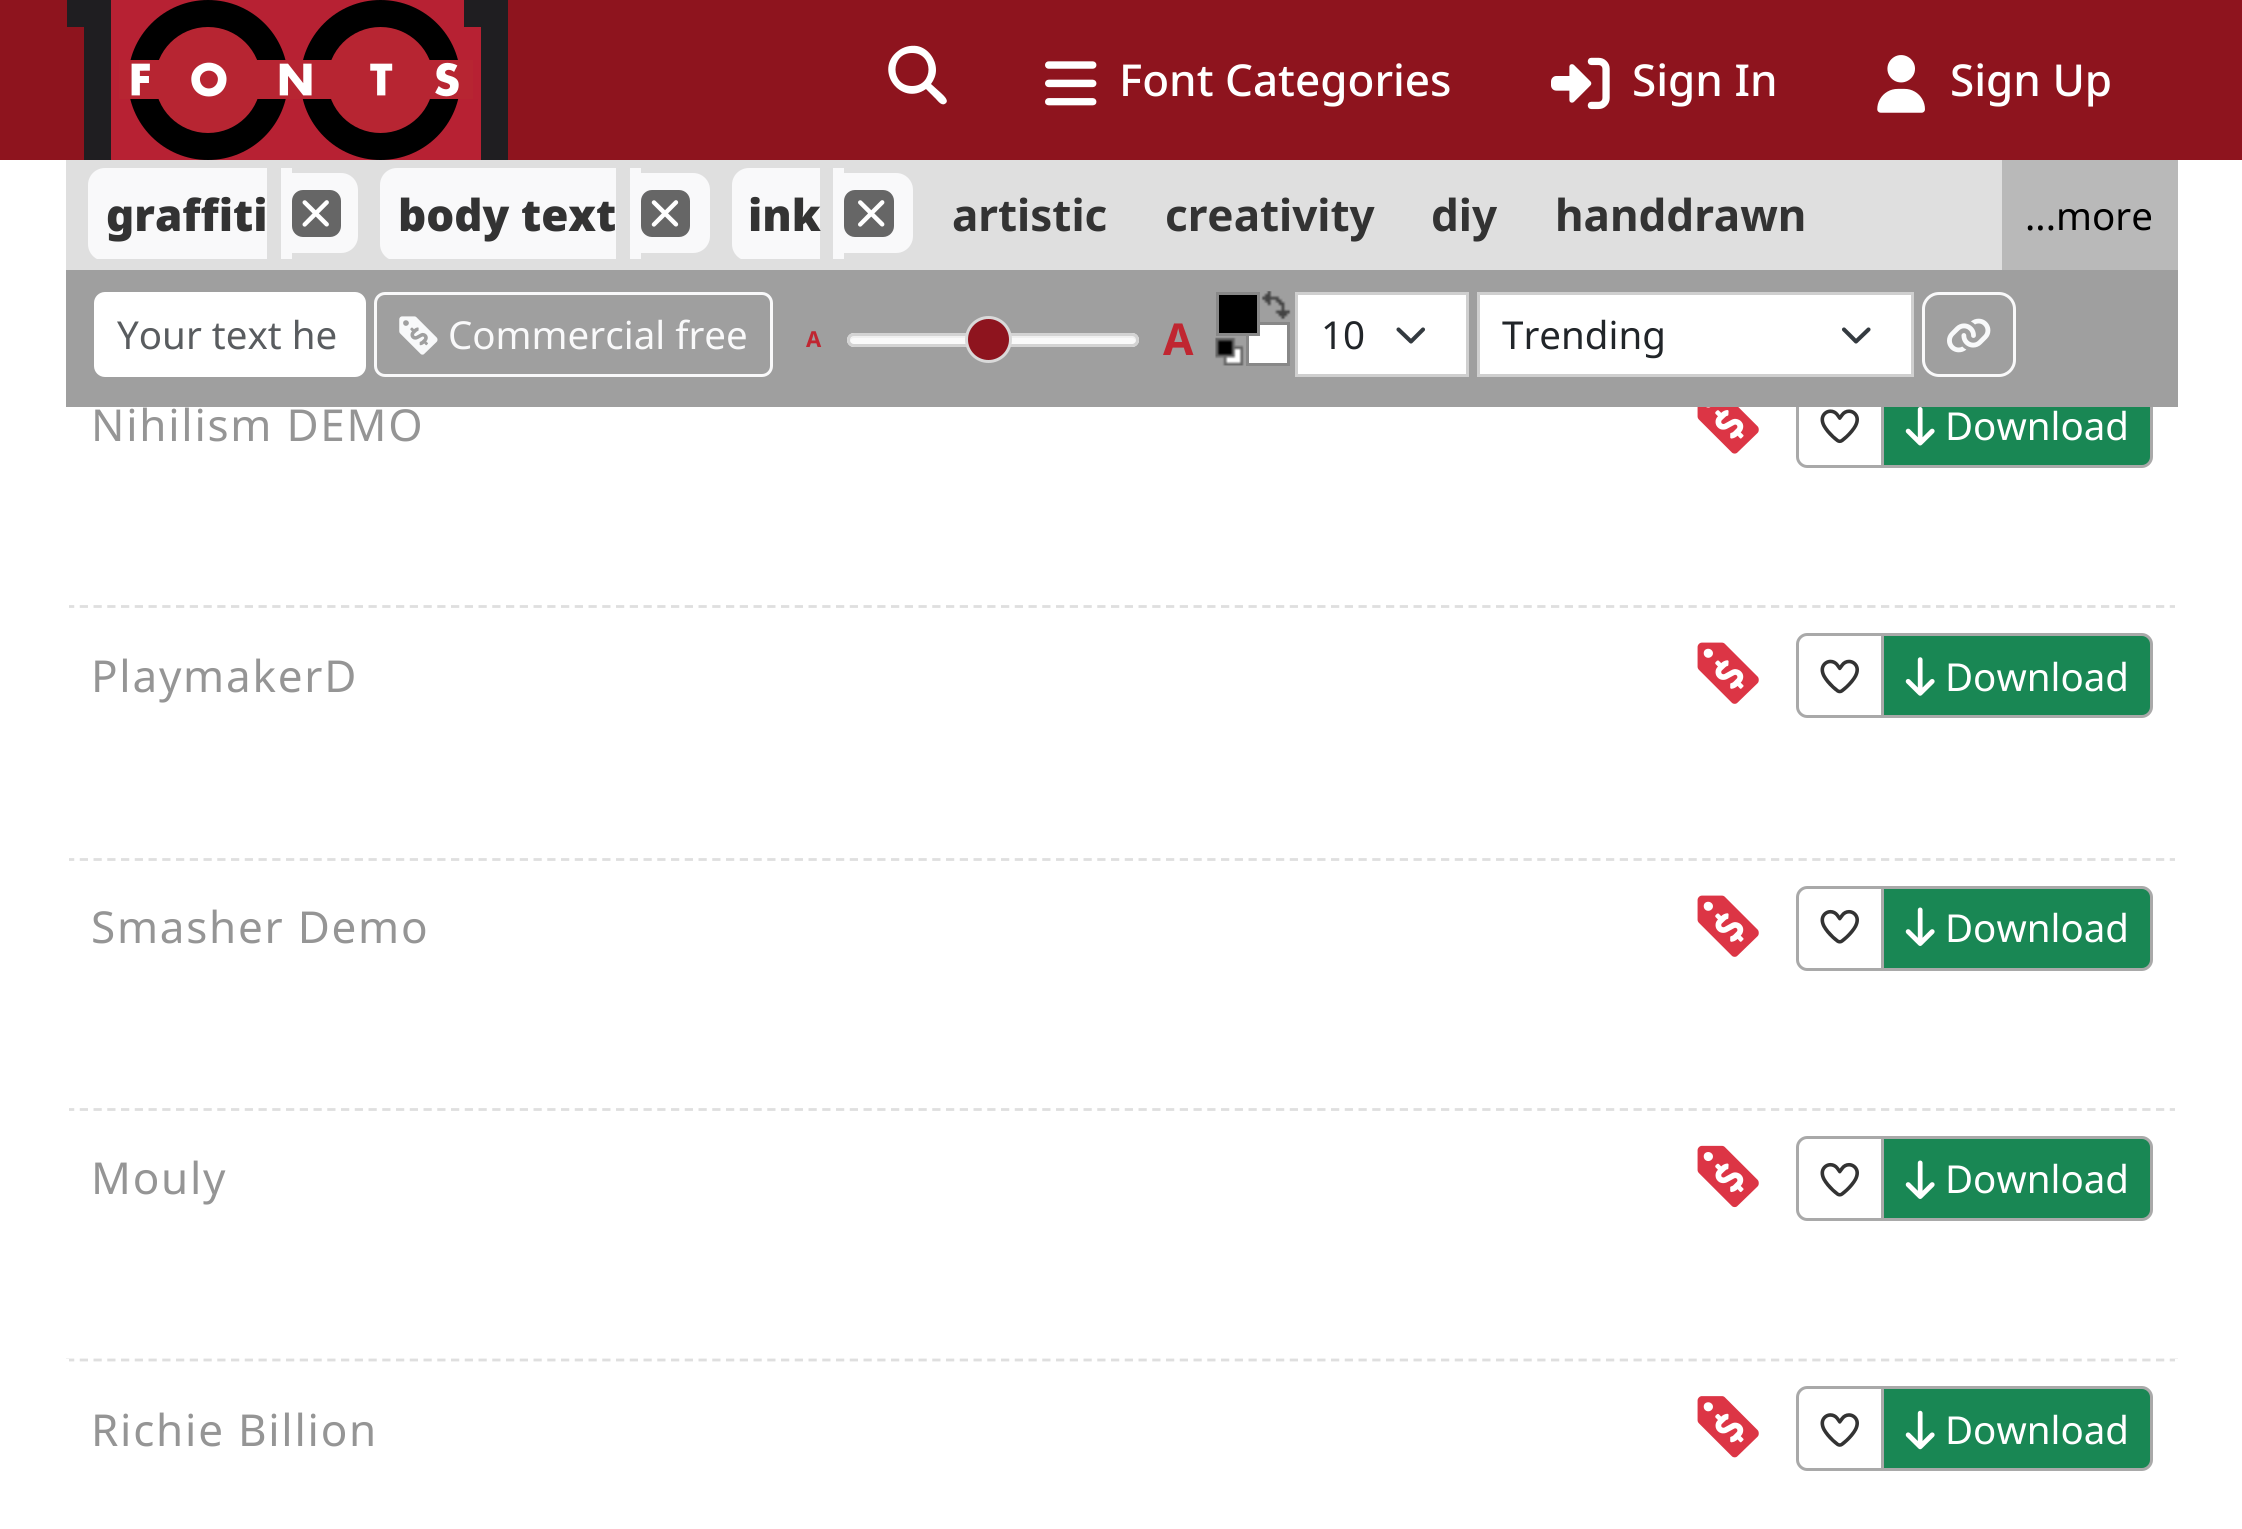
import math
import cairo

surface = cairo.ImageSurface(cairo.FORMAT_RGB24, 2242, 1529)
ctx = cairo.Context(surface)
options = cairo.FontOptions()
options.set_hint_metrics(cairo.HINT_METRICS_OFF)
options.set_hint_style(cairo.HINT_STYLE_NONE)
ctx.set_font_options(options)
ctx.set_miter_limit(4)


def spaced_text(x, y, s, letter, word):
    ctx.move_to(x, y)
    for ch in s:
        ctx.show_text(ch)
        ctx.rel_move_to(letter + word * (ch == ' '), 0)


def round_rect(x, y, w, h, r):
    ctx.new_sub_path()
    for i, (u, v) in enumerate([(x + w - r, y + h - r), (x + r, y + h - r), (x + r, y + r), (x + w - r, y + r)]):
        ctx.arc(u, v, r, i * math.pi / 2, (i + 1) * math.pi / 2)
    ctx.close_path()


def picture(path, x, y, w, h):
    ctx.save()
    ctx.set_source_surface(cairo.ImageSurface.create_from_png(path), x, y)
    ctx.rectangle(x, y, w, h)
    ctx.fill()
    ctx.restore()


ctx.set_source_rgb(1, 1, 1)
ctx.paint()
ctx.set_source_rgb(0.557, 0.082, 0.118)
ctx.rectangle(0, 0, 2242, 160)
ctx.fill()
picture("img1.png", 67, 0, 441, 160)
ctx.set_source_rgb(1, 1, 1)
ctx.new_path()
ctx.move_to(936, 70)
ctx.curve_to(936, 75, 934, 80, 931, 84)
ctx.line_to(941, 93)
ctx.curve_to(943, 95, 949, 100, 946, 103)
ctx.curve_to(942, 107, 938, 101, 936, 99)
ctx.line_to(926, 89)
ctx.curve_to(901, 107, 873, 70, 898, 51)
ctx.curve_to(903, 47, 910, 45, 917, 46)
ctx.curve_to(928, 48, 936, 59, 936, 70)
ctx.close_path()
ctx.move_to(912, 86)
ctx.curve_to(934, 86, 934, 53, 912, 53)
ctx.curve_to(890, 53, 890, 86, 912, 86)
ctx.close_path()
ctx.fill()
picture("img2.png", 1045, 61, 52, 45)
ctx.select_font_face("Noto Sans Medium")
ctx.set_font_size(44)
ctx.move_to(1119, 96)
ctx.show_text("Font Categories")
picture("img3.png", 1551, 57, 59, 53)
ctx.move_to(1632, 96)
ctx.show_text("Sign In")
picture("img4.png", 1877, 55, 48, 58)
ctx.move_to(1950, 96)
ctx.show_text("Sign Up")
ctx.set_source_rgb(0.875, 0.875, 0.875)
ctx.rectangle(66, 160, 1936, 110)
ctx.fill()
ctx.save()
ctx.rectangle(88, 160, 1953, 99)
ctx.clip()
ctx.set_source_rgb(0.973, 0.976, 0.98)
ctx.new_path()
ctx.move_to(105, 168)
ctx.line_to(267, 168)
ctx.line_to(267, 261)
ctx.line_to(105, 261)
ctx.curve_to(95.5, 261, 88, 253.5, 88, 244)
ctx.line_to(88, 185)
ctx.curve_to(88, 175.5, 95.5, 168, 105, 168)
ctx.close_path()
ctx.fill()
ctx.restore()
ctx.set_source_rgb(0.973, 0.976, 0.98)
ctx.rectangle(281, 168, 11, 91)
ctx.fill()
ctx.new_path()
ctx.move_to(292, 173)
ctx.line_to(341, 173)
ctx.curve_to(350.5, 173, 358, 180.5, 358, 190)
ctx.line_to(358, 236)
ctx.curve_to(358, 245.5, 350.5, 253, 341, 253)
ctx.line_to(292, 253)
ctx.close_path()
ctx.fill()
ctx.select_font_face("Noto Sans Black")
ctx.set_source_rgb(0.2, 0.2, 0.2)
ctx.move_to(106, 231)
ctx.show_text("graffiti")
ctx.set_source_rgb(0.4, 0.4, 0.4)
round_rect(293.5, 191.5, 46, 44, 9.5)
ctx.fill_preserve()
ctx.set_line_width(3)
ctx.stroke()
picture("img5.png", 302, 200, 27, 27)
ctx.save()
ctx.rectangle(88, 160, 1953, 99)
ctx.clip()
ctx.set_source_rgb(0.973, 0.976, 0.98)
ctx.new_path()
ctx.move_to(397, 168)
ctx.line_to(616, 168)
ctx.line_to(616, 261)
ctx.line_to(397, 261)
ctx.curve_to(387.5, 261, 380, 253.5, 380, 244)
ctx.line_to(380, 185)
ctx.curve_to(380, 175.5, 387.5, 168, 397, 168)
ctx.close_path()
ctx.fill()
ctx.restore()
ctx.set_source_rgb(0.973, 0.976, 0.98)
ctx.rectangle(630, 168, 11, 91)
ctx.fill()
ctx.new_path()
ctx.move_to(641, 173)
ctx.line_to(693, 173)
ctx.curve_to(702.5, 173, 710, 180.5, 710, 190)
ctx.line_to(710, 236)
ctx.curve_to(710, 245.5, 702.5, 253, 693, 253)
ctx.line_to(641, 253)
ctx.close_path()
ctx.fill()
ctx.set_source_rgb(0.2, 0.2, 0.2)
ctx.move_to(398, 231)
ctx.show_text("body text")
ctx.set_source_rgb(0.4, 0.4, 0.4)
round_rect(642.5, 191.5, 46, 44, 9.5)
ctx.fill_preserve()
ctx.stroke()
picture("img6.png", 651, 200, 28, 27)
ctx.save()
ctx.rectangle(88, 160, 1953, 99)
ctx.clip()
ctx.set_source_rgb(0.973, 0.976, 0.98)
ctx.new_path()
ctx.move_to(749, 168)
ctx.line_to(820, 168)
ctx.line_to(820, 261)
ctx.line_to(749, 261)
ctx.curve_to(739.5, 261, 732, 253.5, 732, 244)
ctx.line_to(732, 185)
ctx.curve_to(732, 175.5, 739.5, 168, 749, 168)
ctx.close_path()
ctx.fill()
ctx.restore()
ctx.set_source_rgb(0.973, 0.976, 0.98)
ctx.rectangle(833, 168, 11, 91)
ctx.fill()
ctx.new_path()
ctx.move_to(844, 173)
ctx.line_to(896, 173)
ctx.curve_to(905.5, 173, 913, 180.5, 913, 190)
ctx.line_to(913, 236)
ctx.curve_to(913, 245.5, 905.5, 253, 896, 253)
ctx.line_to(844, 253)
ctx.close_path()
ctx.fill()
ctx.set_source_rgb(0.2, 0.2, 0.2)
ctx.move_to(748, 231)
ctx.show_text("ink")
ctx.set_source_rgb(0.4, 0.4, 0.4)
round_rect(845.5, 191.5, 47, 44, 9.5)
ctx.fill_preserve()
ctx.stroke()
picture("img7.png", 858, 200, 27, 27)
ctx.select_font_face("Noto Sans", cairo.FONT_SLANT_NORMAL, cairo.FONT_WEIGHT_BOLD)
ctx.set_source_rgb(0.2, 0.2, 0.2)
ctx.move_to(952, 231)
ctx.show_text("artistic")
ctx.move_to(1165, 231)
ctx.show_text("creativity")
ctx.move_to(1431, 231)
ctx.show_text("diy")
ctx.move_to(1555, 231)
ctx.show_text("handdrawn")
ctx.set_source_rgb(0.725, 0.725, 0.725)
ctx.rectangle(2002, 160, 176, 110)
ctx.fill()
ctx.select_font_face("Noto Sans")
ctx.set_font_size(38.5)
ctx.set_source_rgb(0, 0, 0)
ctx.move_to(2025, 230)
ctx.show_text("...more")
ctx.new_path()
ctx.move_to(1807, 383.5)
ctx.line_to(1882.5, 383.5)
ctx.line_to(1882.5, 466.5)
ctx.line_to(1807, 466.5)
ctx.curve_to(1802, 466.5, 1797.5, 462, 1797.5, 457)
ctx.line_to(1797.5, 393)
ctx.curve_to(1797.5, 388, 1802, 383.5, 1807, 383.5)
ctx.close_path()
ctx.set_source_rgb(0.663, 0.663, 0.663)
ctx.stroke()
ctx.set_source_rgb(0.098, 0.529, 0.329)
ctx.new_path()
ctx.move_to(1882.5, 383.5)
ctx.line_to(2142, 383.5)
ctx.curve_to(2147, 383.5, 2151.5, 388, 2151.5, 393)
ctx.line_to(2151.5, 457)
ctx.curve_to(2151.5, 462, 2147, 466.5, 2142, 466.5)
ctx.line_to(1882.5, 466.5)
ctx.close_path()
ctx.fill_preserve()
ctx.set_source_rgb(0.663, 0.663, 0.663)
ctx.stroke()
ctx.set_source_rgb(0.624, 0.624, 0.624)
ctx.rectangle(66, 270, 2112, 137)
ctx.fill()
ctx.set_source_rgb(1, 1, 1)
round_rect(95.5, 293.5, 269, 82, 9.5)
ctx.fill_preserve()
ctx.stroke()
ctx.set_source_rgb(0.349, 0.361, 0.373)
ctx.move_to(117, 349)
ctx.show_text("Your text he")
round_rect(375.5, 293.5, 396, 82, 9.5)
ctx.set_source_rgb(0.973, 0.976, 0.98)
ctx.stroke()
picture("img8.png", 399, 316, 39, 39)
ctx.move_to(448, 349)
ctx.show_text("Commercial free")
ctx.select_font_face("Noto Sans", cairo.FONT_SLANT_NORMAL, cairo.FONT_WEIGHT_BOLD)
ctx.set_font_size(22)
ctx.set_source_rgb(0.753, 0.149, 0.192)
ctx.move_to(806, 347)
ctx.show_text("A")
ctx.set_source_rgb(0.98, 0.98, 0.98)
round_rect(847, 333, 292, 14, 7)
ctx.fill()
ctx.set_source_rgb(0.941, 0.941, 0.941)
ctx.new_path()
ctx.move_to(854, 338)
ctx.line_to(1132, 338)
ctx.curve_to(1134, 338, 1135, 339, 1136, 341)
ctx.curve_to(1139, 329, 1097, 336, 1086, 336)
ctx.line_to(853, 336)
ctx.line_to(851, 338)
ctx.curve_to(850, 339, 850, 340, 850, 341)
ctx.curve_to(851, 339, 852, 338, 854, 338)
ctx.close_path()
ctx.fill()
round_rect(848.5, 334.5, 289, 11, 5.5)
ctx.set_source_rgb(0.827, 0.827, 0.827)
ctx.stroke()
ctx.set_source_rgb(0.557, 0.082, 0.118)
ctx.arc(988.5, 339.5, 22, 0, 2 * math.pi)
ctx.fill_preserve()
ctx.set_source_rgb(0.851, 0.851, 0.851)
ctx.stroke()
ctx.set_font_size(44)
ctx.set_source_rgb(0.753, 0.149, 0.192)
ctx.move_to(1163, 355)
ctx.show_text("A")
ctx.set_source_rgb(1, 1, 1)
ctx.rectangle(1247.5, 323.5, 41, 41)
ctx.fill_preserve()
ctx.set_source_rgb(0.533, 0.533, 0.533)
ctx.stroke()
ctx.set_source_rgb(0, 0, 0)
ctx.rectangle(1217.5, 293.5, 41, 41)
ctx.fill_preserve()
ctx.set_source_rgb(0.533, 0.533, 0.533)
ctx.stroke()
picture("img9.png", 1261, 291, 30, 29)
picture("img10.png", 1215, 337, 29, 29)
ctx.set_source_rgb(1, 1, 1)
ctx.rectangle(1298, 295, 168, 79)
ctx.fill()
ctx.new_path()
ctx.move_to(1398.5, 329.5)
ctx.line_to(1411, 341.5)
ctx.line_to(1423, 329.5)
ctx.set_source_rgb(0.204, 0.227, 0.251)
ctx.set_line_width(4.1)
ctx.set_line_cap(cairo.LINE_CAP_ROUND)
ctx.set_line_join(cairo.LINE_JOIN_ROUND)
ctx.stroke()
ctx.rectangle(1296.5, 293.5, 171, 82)
ctx.set_source_rgb(0.812, 0.812, 0.812)
ctx.set_line_width(3)
ctx.set_line_cap(cairo.LINE_CAP_BUTT)
ctx.set_line_join(cairo.LINE_JOIN_MITER)
ctx.stroke()
ctx.select_font_face("Noto Sans")
ctx.set_font_size(38.5)
ctx.set_source_rgb(0.129, 0.145, 0.161)
ctx.move_to(1321, 349)
ctx.show_text("10")
ctx.set_source_rgb(1, 1, 1)
ctx.rectangle(1480, 295, 431, 79)
ctx.fill()
ctx.new_path()
ctx.move_to(1844, 329.5)
ctx.line_to(1856, 341.5)
ctx.line_to(1868.5, 329.5)
ctx.set_source_rgb(0.204, 0.227, 0.251)
ctx.set_line_width(4.1)
ctx.set_line_cap(cairo.LINE_CAP_ROUND)
ctx.set_line_join(cairo.LINE_JOIN_ROUND)
ctx.stroke()
ctx.rectangle(1478.5, 293.5, 434, 82)
ctx.set_source_rgb(0.812, 0.812, 0.812)
ctx.set_line_width(3)
ctx.set_line_cap(cairo.LINE_CAP_BUTT)
ctx.set_line_join(cairo.LINE_JOIN_MITER)
ctx.stroke()
ctx.set_source_rgb(0.129, 0.145, 0.161)
ctx.move_to(1502, 349)
ctx.show_text("Trending")
round_rect(1923.5, 293.5, 91, 82, 15.5)
ctx.set_source_rgb(0.973, 0.976, 0.98)
ctx.stroke()
picture("img11.png", 1947, 318, 44, 35)
ctx.set_font_size(44)
ctx.set_source_rgb(0.584, 0.584, 0.584)
spaced_text(91, 441, "Nihilism DEMO", 1.75, 0)
picture("img12.png", 1697, 407, 62, 47)
picture("img13.png", 1820, 409, 39, 35)
picture("img14.png", 1905, 407, 30, 39)
ctx.set_font_size(38.5)
ctx.set_source_rgb(1, 1, 1)
ctx.move_to(1945, 440)
ctx.show_text("Download")
ctx.new_path()
ctx.move_to(66, 606.5)
ctx.line_to(2178, 606.5)
ctx.set_source_rgb(0.875, 0.875, 0.875)
ctx.set_line_width(2.8)
ctx.set_dash([8.25, 5.5])
ctx.stroke()
ctx.set_source_rgb(1, 1, 1)
ctx.rectangle(2175, 605, 3, 3)
ctx.fill()
ctx.rectangle(66, 605, 3, 3)
ctx.fill()
ctx.set_font_size(44)
ctx.set_source_rgb(0.584, 0.584, 0.584)
spaced_text(91, 692, "PlaymakerD", 1.75, 0)
picture("img15.png", 1697, 642, 62, 62)
ctx.new_path()
ctx.move_to(1807, 634.5)
ctx.line_to(1882.5, 634.5)
ctx.line_to(1882.5, 716.5)
ctx.line_to(1807, 716.5)
ctx.curve_to(1802, 716.5, 1797.5, 712, 1797.5, 707)
ctx.line_to(1797.5, 644)
ctx.curve_to(1797.5, 639, 1802, 634.5, 1807, 634.5)
ctx.close_path()
ctx.set_source_rgb(0.663, 0.663, 0.663)
ctx.set_line_width(3)
ctx.set_dash([])
ctx.stroke()
picture("img16.png", 1820, 659, 39, 35)
ctx.set_source_rgb(0.098, 0.529, 0.329)
ctx.new_path()
ctx.move_to(1882.5, 634.5)
ctx.line_to(2142, 634.5)
ctx.curve_to(2147, 634.5, 2151.5, 639, 2151.5, 644)
ctx.line_to(2151.5, 707)
ctx.curve_to(2151.5, 712, 2147, 716.5, 2142, 716.5)
ctx.line_to(1882.5, 716.5)
ctx.close_path()
ctx.fill_preserve()
ctx.set_source_rgb(0.663, 0.663, 0.663)
ctx.stroke()
picture("img17.png", 1905, 657, 30, 39)
ctx.set_font_size(38.5)
ctx.set_source_rgb(1, 1, 1)
ctx.move_to(1945, 691)
ctx.show_text("Download")
ctx.new_path()
ctx.move_to(66, 859.5)
ctx.line_to(2178, 859.5)
ctx.set_source_rgb(0.875, 0.875, 0.875)
ctx.set_line_width(2.8)
ctx.set_dash([8.25, 5.5])
ctx.stroke()
ctx.set_source_rgb(1, 1, 1)
ctx.rectangle(2175, 858, 3, 3)
ctx.fill()
ctx.rectangle(66, 858, 3, 3)
ctx.fill()
ctx.set_font_size(44)
ctx.set_source_rgb(0.584, 0.584, 0.584)
spaced_text(91, 943, "Smasher Demo", 1.75, 0)
picture("img15.png", 1697, 895, 62, 62)
ctx.new_path()
ctx.move_to(1807, 887.5)
ctx.line_to(1882.5, 887.5)
ctx.line_to(1882.5, 969.5)
ctx.line_to(1807, 969.5)
ctx.curve_to(1802, 969.5, 1797.5, 965, 1797.5, 960)
ctx.line_to(1797.5, 897)
ctx.curve_to(1797.5, 892, 1802, 887.5, 1807, 887.5)
ctx.close_path()
ctx.set_source_rgb(0.663, 0.663, 0.663)
ctx.set_line_width(3)
ctx.set_dash([])
ctx.stroke()
picture("img18.png", 1820, 909, 39, 35)
ctx.set_source_rgb(0.098, 0.529, 0.329)
ctx.new_path()
ctx.move_to(1882.5, 887.5)
ctx.line_to(2142, 887.5)
ctx.curve_to(2147, 887.5, 2151.5, 892, 2151.5, 897)
ctx.line_to(2151.5, 960)
ctx.curve_to(2151.5, 965, 2147, 969.5, 2142, 969.5)
ctx.line_to(1882.5, 969.5)
ctx.close_path()
ctx.fill_preserve()
ctx.set_source_rgb(0.663, 0.663, 0.663)
ctx.stroke()
picture("img19.png", 1905, 907, 30, 39)
ctx.set_font_size(38.5)
ctx.set_source_rgb(1, 1, 1)
ctx.move_to(1945, 942)
ctx.show_text("Download")
ctx.new_path()
ctx.move_to(66, 1109.5)
ctx.line_to(2178, 1109.5)
ctx.set_source_rgb(0.875, 0.875, 0.875)
ctx.set_line_width(2.8)
ctx.set_dash([8.25, 5.5])
ctx.stroke()
ctx.set_source_rgb(1, 1, 1)
ctx.rectangle(2175, 1108, 3, 3)
ctx.fill()
ctx.rectangle(66, 1108, 3, 3)
ctx.fill()
ctx.set_font_size(44)
ctx.set_source_rgb(0.584, 0.584, 0.584)
spaced_text(91, 1194, "Mouly", 1.75, 0)
picture("img20.png", 1697, 1145, 62, 63)
ctx.new_path()
ctx.move_to(1807, 1137.5)
ctx.line_to(1882.5, 1137.5)
ctx.line_to(1882.5, 1219.5)
ctx.line_to(1807, 1219.5)
ctx.curve_to(1802, 1219.5, 1797.5, 1215, 1797.5, 1210)
ctx.line_to(1797.5, 1147)
ctx.curve_to(1797.5, 1142, 1802, 1137.5, 1807, 1137.5)
ctx.close_path()
ctx.set_source_rgb(0.663, 0.663, 0.663)
ctx.set_line_width(3)
ctx.set_dash([])
ctx.stroke()
picture("img18.png", 1820, 1162, 39, 35)
ctx.set_source_rgb(0.098, 0.529, 0.329)
ctx.new_path()
ctx.move_to(1882.5, 1137.5)
ctx.line_to(2142, 1137.5)
ctx.curve_to(2147, 1137.5, 2151.5, 1142, 2151.5, 1147)
ctx.line_to(2151.5, 1210)
ctx.curve_to(2151.5, 1215, 2147, 1219.5, 2142, 1219.5)
ctx.line_to(1882.5, 1219.5)
ctx.close_path()
ctx.fill_preserve()
ctx.set_source_rgb(0.663, 0.663, 0.663)
ctx.stroke()
picture("img19.png", 1905, 1160, 30, 39)
ctx.set_font_size(38.5)
ctx.set_source_rgb(1, 1, 1)
ctx.move_to(1945, 1193)
ctx.show_text("Download")
ctx.new_path()
ctx.move_to(66, 1360)
ctx.line_to(2178, 1360)
ctx.set_source_rgb(0.875, 0.875, 0.875)
ctx.set_line_width(2.8)
ctx.set_dash([8.25, 5.5])
ctx.stroke()
ctx.set_source_rgb(1, 1, 1)
ctx.rectangle(2175, 1359, 3, 3)
ctx.fill()
ctx.rectangle(66, 1359, 3, 3)
ctx.fill()
ctx.set_font_size(44)
ctx.set_source_rgb(0.584, 0.584, 0.584)
spaced_text(91, 1446, "Richie Billion", 1.75, 0)
picture("img21.png", 1697, 1396, 62, 62)
ctx.new_path()
ctx.move_to(1807, 1387.5)
ctx.line_to(1882.5, 1387.5)
ctx.line_to(1882.5, 1469.5)
ctx.line_to(1807, 1469.5)
ctx.curve_to(1802, 1469.5, 1797.5, 1465, 1797.5, 1460)
ctx.line_to(1797.5, 1397)
ctx.curve_to(1797.5, 1392, 1802, 1387.5, 1807, 1387.5)
ctx.close_path()
ctx.set_source_rgb(0.663, 0.663, 0.663)
ctx.set_line_width(3)
ctx.set_dash([])
ctx.stroke()
picture("img22.png", 1820, 1413, 39, 34)
ctx.set_source_rgb(0.098, 0.529, 0.329)
ctx.new_path()
ctx.move_to(1882.5, 1387.5)
ctx.line_to(2142, 1387.5)
ctx.curve_to(2147, 1387.5, 2151.5, 1392, 2151.5, 1397)
ctx.line_to(2151.5, 1460)
ctx.curve_to(2151.5, 1465, 2147, 1469.5, 2142, 1469.5)
ctx.line_to(1882.5, 1469.5)
ctx.close_path()
ctx.fill_preserve()
ctx.set_source_rgb(0.663, 0.663, 0.663)
ctx.stroke()
picture("img23.png", 1905, 1410, 30, 40)
ctx.set_font_size(38.5)
ctx.set_source_rgb(1, 1, 1)
ctx.move_to(1945, 1444)
ctx.show_text("Download")
surface.write_to_png("page.png")
